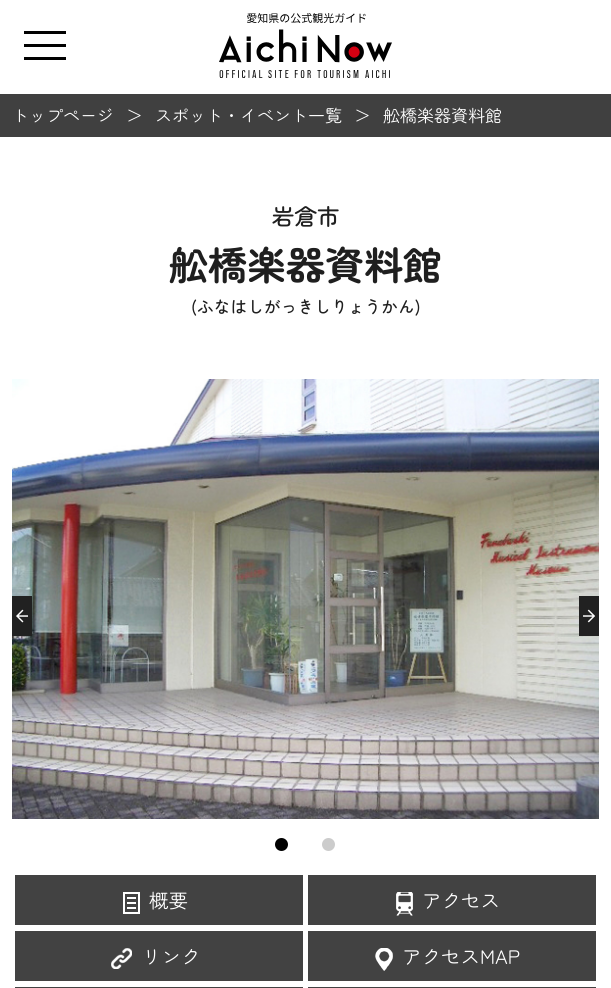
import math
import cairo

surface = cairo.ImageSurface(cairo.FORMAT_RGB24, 611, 988)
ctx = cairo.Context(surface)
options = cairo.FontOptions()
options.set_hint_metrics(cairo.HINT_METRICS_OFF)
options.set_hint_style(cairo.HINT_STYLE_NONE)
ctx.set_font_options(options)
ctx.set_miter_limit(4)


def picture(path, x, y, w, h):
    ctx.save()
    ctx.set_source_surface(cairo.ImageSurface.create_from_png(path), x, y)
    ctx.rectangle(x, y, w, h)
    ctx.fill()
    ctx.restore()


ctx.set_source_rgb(1, 1, 1)
ctx.paint()
ctx.set_source_rgb(0.004, 0.004, 0.004)
ctx.rectangle(24, 31, 42, 3)
ctx.fill()
ctx.rectangle(24, 44, 42, 3)
ctx.fill()
ctx.rectangle(24, 57, 42, 3)
ctx.fill()
picture("img1.png", 219, 13, 173, 65)
ctx.set_source_rgb(0.251, 0.251, 0.251)
ctx.rectangle(0, 94, 611, 43)
ctx.fill()
ctx.select_font_face("Zen Maru Gothic")
ctx.set_font_size(17)
ctx.set_source_rgb(1, 1, 1)
ctx.move_to(12, 122)
ctx.show_text("トップページ")
ctx.move_to(126, 122)
ctx.show_text("＞")
ctx.move_to(155, 122)
ctx.show_text("スポット・イベント一覧")
ctx.move_to(354, 122)
ctx.show_text("＞")
ctx.move_to(383, 122)
ctx.show_text("舩橋楽器資料館")
ctx.select_font_face("Zen Maru Gothic Medium")
ctx.set_font_size(22.5)
ctx.set_source_rgb(0.122, 0.122, 0.122)
ctx.move_to(272, 225)
ctx.show_text("岩倉市")
ctx.select_font_face("Zen Maru Gothic", cairo.FONT_SLANT_NORMAL, cairo.FONT_WEIGHT_BOLD)
ctx.set_font_size(39)
ctx.move_to(169, 280)
ctx.show_text("舩橋楽器資料館")
ctx.select_font_face("Zen Maru Gothic Medium")
ctx.set_font_size(16.75)
ctx.move_to(191, 313)
ctx.show_text("(ふなはしがっきしりょうかん)")
picture("img2.png", 12, 379, 587, 440)
picture("img3.png", 12, 596, 20, 40)
picture("img4.png", 579, 596, 20, 40)
ctx.set_source_rgb(0, 0, 0)
ctx.arc(281.5, 844.5, 6.5, 0, 2 * math.pi)
ctx.fill()
ctx.set_source_rgb(0.8, 0.8, 0.8)
ctx.arc(328.5, 844.5, 6.5, 0, 2 * math.pi)
ctx.fill()
ctx.set_source_rgb(0.259, 0.259, 0.259)
ctx.rectangle(15, 875, 288, 50)
ctx.fill()
picture("img5.png", 123, 892, 17, 22)
ctx.select_font_face("Zen Maru Gothic")
ctx.set_font_size(19.5)
ctx.set_source_rgb(1, 1, 1)
ctx.move_to(149, 908)
ctx.show_text("概要")
ctx.set_source_rgb(0.259, 0.259, 0.259)
ctx.rectangle(308, 875, 288, 50)
ctx.fill()
picture("img6.png", 396, 892, 17, 24)
ctx.set_source_rgb(1, 1, 1)
ctx.move_to(422, 908)
ctx.show_text("アクセス")
ctx.set_source_rgb(0.259, 0.259, 0.259)
ctx.rectangle(15, 931, 288, 50)
ctx.fill()
picture("img7.png", 111, 948, 21, 21)
ctx.set_source_rgb(1, 1, 1)
ctx.move_to(142, 964)
ctx.show_text("リンク")
ctx.set_source_rgb(0.259, 0.259, 0.259)
ctx.rectangle(308, 931, 288, 50)
ctx.fill()
picture("img8.png", 375, 948, 18, 23)
ctx.set_source_rgb(1, 1, 1)
ctx.move_to(402, 964)
ctx.show_text("アクセスMAP")
ctx.set_source_rgb(0.259, 0.259, 0.259)
ctx.rectangle(15, 987, 288, 1)
ctx.fill()
ctx.rectangle(308, 987, 288, 1)
ctx.fill()
surface.write_to_png("page.png")
